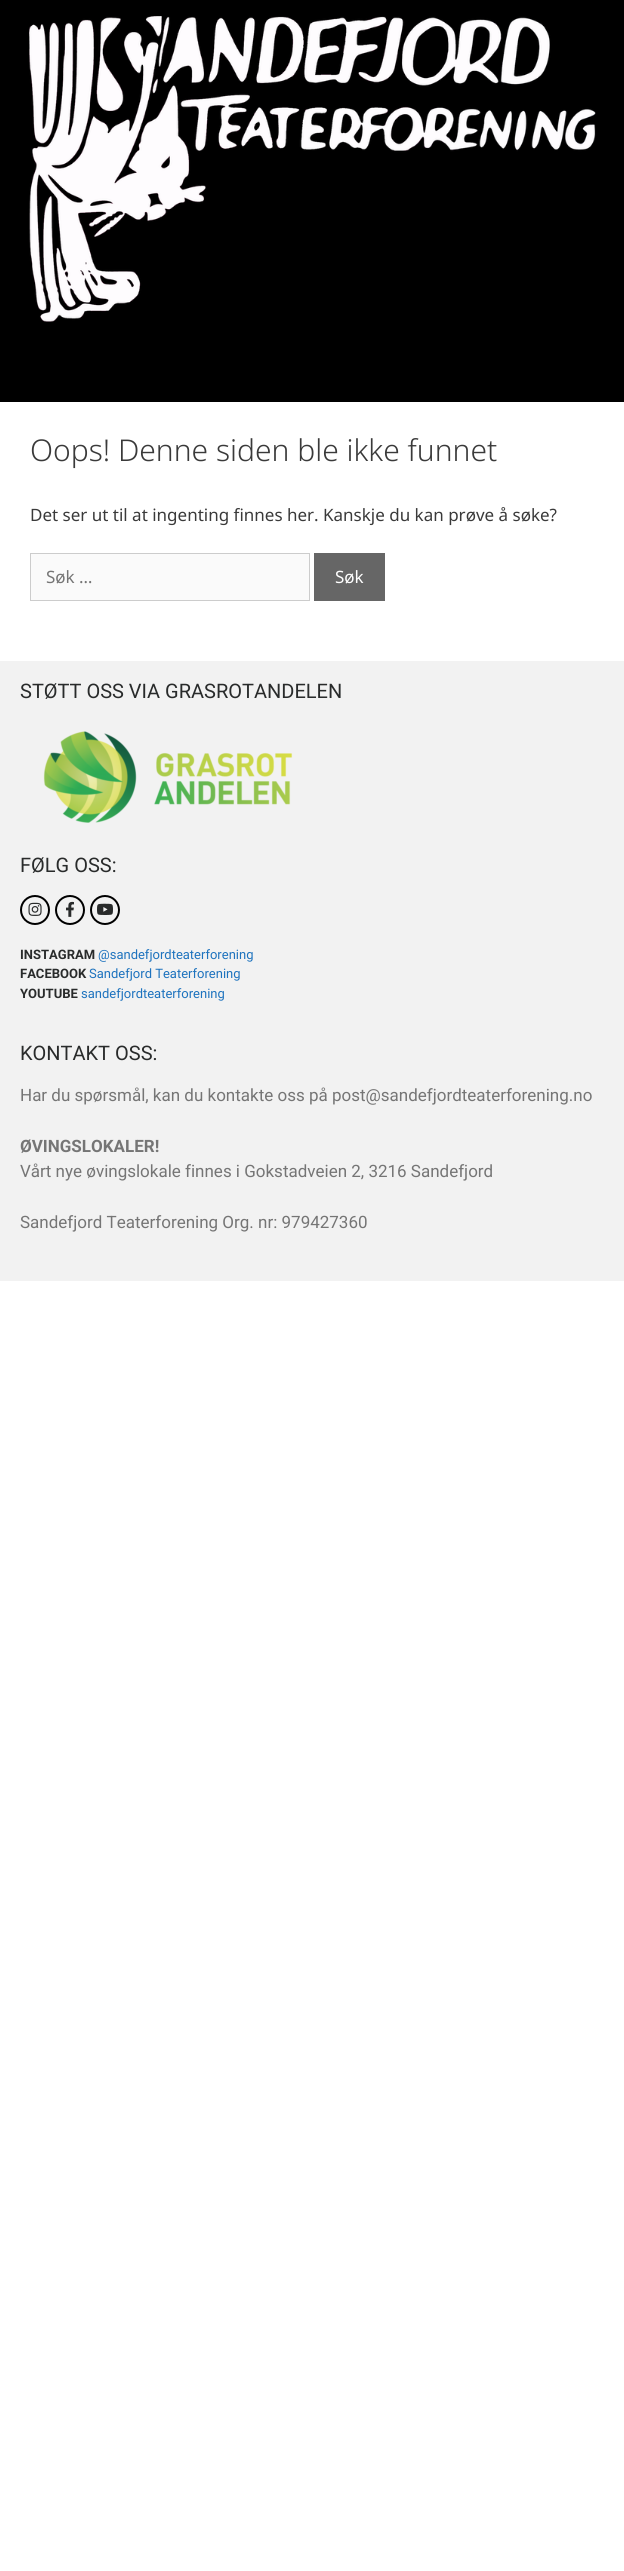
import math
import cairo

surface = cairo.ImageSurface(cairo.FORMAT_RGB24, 624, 2571)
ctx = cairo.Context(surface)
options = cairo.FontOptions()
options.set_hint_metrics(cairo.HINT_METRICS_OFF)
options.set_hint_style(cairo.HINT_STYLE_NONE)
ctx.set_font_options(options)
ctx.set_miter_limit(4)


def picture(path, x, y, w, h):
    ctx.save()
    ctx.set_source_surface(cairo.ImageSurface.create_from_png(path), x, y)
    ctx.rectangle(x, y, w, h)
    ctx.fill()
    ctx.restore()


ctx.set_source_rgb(1, 1, 1)
ctx.paint()
ctx.set_source_rgb(0, 0, 0)
ctx.rectangle(0, 0, 624, 402)
ctx.fill()
picture("img1.png", 29, 16, 567, 306)
ctx.select_font_face("Noto Sans Light")
ctx.set_font_size(30)
ctx.set_source_rgb(0.227, 0.227, 0.227)
ctx.move_to(30, 461)
ctx.show_text("Oops! Denne siden ble ikke funnet")
ctx.select_font_face("Noto Sans")
ctx.set_font_size(17)
ctx.move_to(30, 521)
ctx.show_text("Det ser ut til at ingenting finnes her. Kanskje du kan prøve å søke?")
ctx.set_source_rgb(0.98, 0.98, 0.98)
ctx.rectangle(30.5, 553.5, 279, 47)
ctx.fill_preserve()
ctx.set_source_rgb(0.8, 0.8, 0.8)
ctx.set_line_width(1)
ctx.stroke()
ctx.set_source_rgb(0.459, 0.459, 0.459)
ctx.move_to(46, 583)
ctx.show_text("Søk …")
ctx.set_source_rgb(0.4, 0.4, 0.4)
ctx.rectangle(314, 553, 71, 48)
ctx.fill()
ctx.set_source_rgb(1, 1, 1)
ctx.move_to(335, 583)
ctx.show_text("Søk")
ctx.set_source_rgb(0.949, 0.949, 0.949)
ctx.rectangle(0, 661, 624, 620)
ctx.fill()
ctx.select_font_face("Roboto")
ctx.set_font_size(20)
ctx.set_source_rgb(0.161, 0.169, 0.169)
ctx.move_to(20, 698)
ctx.show_text("STØTT OSS VIA GRASROTANDELEN")
picture("img2.png", 43, 731, 250, 92)
ctx.move_to(20, 872)
ctx.show_text("FØLG OSS:")
ctx.new_path()
ctx.arc(35, 910, 14, 0, 2 * math.pi)
ctx.set_source_rgb(0, 0, 0)
ctx.set_line_width(2)
ctx.stroke()
picture("img3.png", 28, 902, 14, 14)
ctx.arc(70, 910, 14, 0, 2 * math.pi)
ctx.stroke()
picture("img4.png", 66, 901, 8, 16)
ctx.arc(105, 910, 14, 0, 2 * math.pi)
ctx.stroke()
picture("img5.png", 97, 903, 16, 12)
ctx.select_font_face("Roboto", cairo.FONT_SLANT_NORMAL, cairo.FONT_WEIGHT_BOLD)
ctx.set_font_size(13)
ctx.set_source_rgb(0.161, 0.169, 0.169)
ctx.move_to(20, 959)
ctx.show_text("INSTAGRAM")
ctx.select_font_face("Roboto")
ctx.set_source_rgb(0.118, 0.451, 0.745)
ctx.move_to(98, 959)
ctx.show_text("@sandefjordteaterforening")
ctx.select_font_face("Roboto", cairo.FONT_SLANT_NORMAL, cairo.FONT_WEIGHT_BOLD)
ctx.set_source_rgb(0.161, 0.169, 0.169)
ctx.move_to(20, 978)
ctx.show_text("FACEBOOK")
ctx.select_font_face("Roboto")
ctx.set_source_rgb(0.118, 0.451, 0.745)
ctx.move_to(89, 978)
ctx.show_text("Sandefjord Teaterforening")
ctx.select_font_face("Roboto", cairo.FONT_SLANT_NORMAL, cairo.FONT_WEIGHT_BOLD)
ctx.set_source_rgb(0.161, 0.169, 0.169)
ctx.move_to(20, 998)
ctx.show_text("YOUTUBE")
ctx.select_font_face("Roboto")
ctx.set_source_rgb(0.118, 0.451, 0.745)
ctx.move_to(81, 998)
ctx.show_text("sandefjordteaterforening")
ctx.set_font_size(20)
ctx.set_source_rgb(0.161, 0.169, 0.169)
ctx.move_to(20, 1060)
ctx.show_text("KONTAKT OSS:")
ctx.set_font_size(17)
ctx.set_source_rgb(0.459, 0.459, 0.459)
ctx.move_to(20, 1101)
ctx.show_text("Har du spørsmål, kan du kontakte oss på post@sandefjordteaterforening.no")
ctx.select_font_face("Roboto", cairo.FONT_SLANT_NORMAL, cairo.FONT_WEIGHT_BOLD)
ctx.move_to(20, 1152)
ctx.show_text("ØVINGSLOKALER!")
ctx.select_font_face("Roboto")
ctx.move_to(20, 1177)
ctx.show_text("Vårt nye øvingslokale finnes i Gokstadveien 2, 3216 Sandefjord")
ctx.move_to(20, 1228)
ctx.show_text("Sandefjord Teaterforening Org. nr: 979427360")
surface.write_to_png("page.png")
